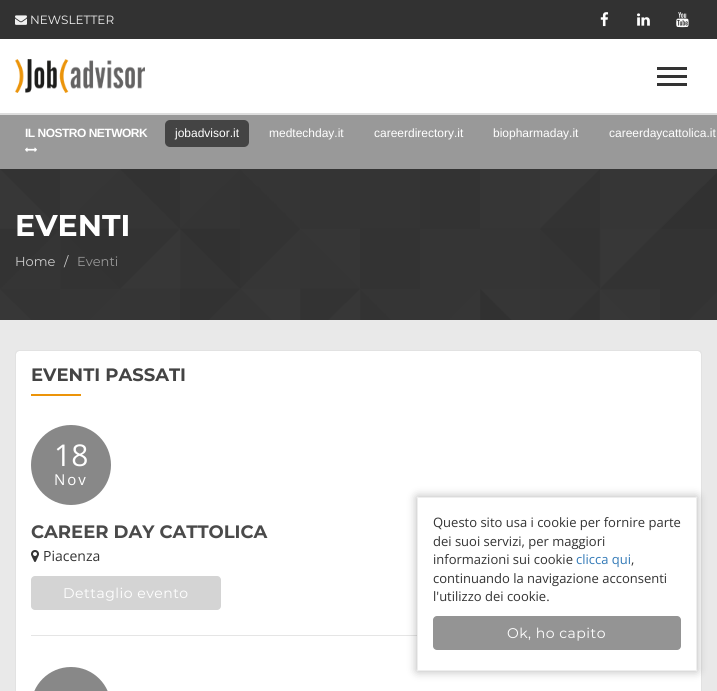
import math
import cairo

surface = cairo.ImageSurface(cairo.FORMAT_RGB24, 717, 691)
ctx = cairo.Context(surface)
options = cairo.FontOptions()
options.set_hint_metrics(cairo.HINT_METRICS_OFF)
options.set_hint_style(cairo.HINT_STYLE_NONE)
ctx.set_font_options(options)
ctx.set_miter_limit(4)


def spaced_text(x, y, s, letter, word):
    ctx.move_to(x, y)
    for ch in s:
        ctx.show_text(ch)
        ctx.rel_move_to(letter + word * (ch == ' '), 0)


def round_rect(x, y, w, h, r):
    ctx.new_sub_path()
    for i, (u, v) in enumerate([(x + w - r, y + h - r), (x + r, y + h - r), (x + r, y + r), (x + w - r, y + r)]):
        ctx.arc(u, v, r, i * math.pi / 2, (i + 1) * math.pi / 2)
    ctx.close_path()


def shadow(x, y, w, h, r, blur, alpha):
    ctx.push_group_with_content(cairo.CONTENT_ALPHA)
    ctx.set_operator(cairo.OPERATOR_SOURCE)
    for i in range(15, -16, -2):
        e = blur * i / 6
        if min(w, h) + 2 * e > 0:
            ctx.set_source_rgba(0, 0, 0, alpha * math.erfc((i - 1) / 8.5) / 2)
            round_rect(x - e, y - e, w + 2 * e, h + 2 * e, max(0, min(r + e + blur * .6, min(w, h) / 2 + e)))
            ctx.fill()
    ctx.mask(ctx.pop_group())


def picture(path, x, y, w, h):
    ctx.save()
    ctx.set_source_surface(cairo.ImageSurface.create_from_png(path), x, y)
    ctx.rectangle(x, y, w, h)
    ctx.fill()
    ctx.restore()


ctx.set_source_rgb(0.914, 0.914, 0.914)
ctx.paint()
ctx.set_source_rgb(0.196, 0.196, 0.196)
ctx.rectangle(0, 0, 717, 39)
ctx.fill()
picture("img1.png", 15, 15, 12, 10)
ctx.select_font_face("Montserrat")
ctx.set_font_size(12)
ctx.set_source_rgb(0.945, 0.945, 0.945)
ctx.move_to(30, 24)
ctx.show_text("NEWSLETTER")
picture("img2.png", 600, 12, 9, 15)
picture("img3.png", 637, 13, 13, 13)
picture("img4.png", 676, 12, 13, 16)
ctx.set_source_rgb(1, 1, 1)
ctx.rectangle(0, 39, 717, 74)
ctx.fill()
ctx.set_source_rgb(0.867, 0.867, 0.867)
ctx.rectangle(0, 113, 717, 2)
ctx.fill()
picture("img5.png", 15, 59, 130, 34)
ctx.set_source_rgb(0.2, 0.2, 0.2)
ctx.rectangle(657, 67, 30, 3)
ctx.fill()
ctx.rectangle(657, 75, 30, 3)
ctx.fill()
ctx.rectangle(657, 83, 30, 3)
ctx.fill()
ctx.set_source_rgb(0.6, 0.6, 0.6)
ctx.rectangle(0, 115, 717, 54)
ctx.fill()
ctx.select_font_face("Liberation Sans", cairo.FONT_SLANT_NORMAL, cairo.FONT_WEIGHT_BOLD)
ctx.set_source_rgb(1, 1, 1)
spaced_text(25, 137, "IL NOSTRO NETWORK", -0.5, 0)
picture("img6.png", 25, 147, 12, 5)
ctx.set_source_rgb(0.267, 0.267, 0.267)
round_rect(165, 120, 84, 27, 5)
ctx.fill()
ctx.select_font_face("Liberation Sans")
ctx.set_source_rgb(1, 1, 1)
ctx.move_to(175, 137)
ctx.show_text("jobadvisor.it")
ctx.move_to(269, 137)
ctx.show_text("medtechday.it")
ctx.move_to(374, 137)
ctx.show_text("careerdirectory.it")
ctx.move_to(493, 137)
ctx.show_text("biopharmaday.it")
ctx.move_to(609, 137)
ctx.show_text("careerdaycattolica.it")
picture("img7.png", 0, 169, 717, 151)
ctx.select_font_face("Montserrat", cairo.FONT_SLANT_NORMAL, cairo.FONT_WEIGHT_BOLD)
ctx.set_font_size(30)
ctx.move_to(15, 236)
ctx.show_text("EVENTI")
ctx.select_font_face("Montserrat")
ctx.set_font_size(13)
ctx.set_source_rgb(0.8, 0.8, 0.8)
ctx.move_to(15, 266)
ctx.show_text("Home")
ctx.move_to(64, 266)
ctx.show_text("/")
ctx.set_source_rgb(0.6, 0.6, 0.6)
ctx.move_to(77, 266)
ctx.show_text("Eventi")
ctx.set_source_rgb(1, 1, 1)
ctx.new_path()
ctx.move_to(19, 351)
ctx.line_to(698, 351)
ctx.curve_to(700, 351, 701, 352, 701, 354)
ctx.line_to(701, 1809)
ctx.curve_to(701, 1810, 700, 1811, 698, 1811)
ctx.line_to(19, 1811)
ctx.curve_to(17, 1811, 16, 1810, 16, 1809)
ctx.line_to(16, 354)
ctx.curve_to(16, 352, 17, 351, 19, 351)
ctx.close_path()
ctx.fill()
ctx.set_source_rgb(0.886, 0.886, 0.886)
ctx.new_path()
ctx.move_to(19, 350)
ctx.line_to(16, 351)
ctx.line_to(17, 352)
ctx.line_to(19, 351)
ctx.line_to(698, 351)
ctx.line_to(700, 352)
ctx.line_to(701, 351)
ctx.line_to(698, 350)
ctx.close_path()
ctx.fill()
ctx.new_path()
ctx.move_to(702, 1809)
ctx.line_to(702, 354)
ctx.line_to(701, 351)
ctx.line_to(700, 352)
ctx.line_to(701, 354)
ctx.line_to(701, 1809)
ctx.line_to(701, 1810)
ctx.line_to(701, 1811)
ctx.close_path()
ctx.fill()
ctx.new_path()
ctx.move_to(15, 354)
ctx.line_to(15, 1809)
ctx.line_to(16, 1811)
ctx.line_to(16, 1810)
ctx.line_to(16, 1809)
ctx.line_to(16, 354)
ctx.line_to(17, 352)
ctx.line_to(16, 351)
ctx.close_path()
ctx.fill()
ctx.select_font_face("Montserrat", cairo.FONT_SLANT_NORMAL, cairo.FONT_WEIGHT_BOLD)
ctx.set_font_size(18)
ctx.set_source_rgb(0.267, 0.267, 0.267)
ctx.move_to(31, 381)
ctx.show_text("EVENTI PASSATI")
ctx.set_source_rgb(0.922, 0.58, 0.039)
ctx.rectangle(31, 394, 50, 2)
ctx.fill()
ctx.set_source_rgb(0.898, 0.898, 0.898)
ctx.rectangle(31, 635, 386, 1)
ctx.fill()
ctx.set_source_rgb(0.533, 0.533, 0.533)
ctx.arc(71, 465, 40, 0, 2 * math.pi)
ctx.fill()
ctx.select_font_face("Open Sans")
ctx.set_font_size(30)
ctx.set_source_rgb(1, 1, 1)
ctx.move_to(54, 466)
ctx.show_text("18")
ctx.set_font_size(15)
spaced_text(54, 485, "Nov", 2, 0)
ctx.select_font_face("Montserrat", cairo.FONT_SLANT_NORMAL, cairo.FONT_WEIGHT_BOLD)
ctx.set_font_size(18)
ctx.set_source_rgb(0.29, 0.29, 0.29)
ctx.move_to(31, 538)
ctx.show_text("CAREER DAY CATTOLICA")
picture("img8.png", 31, 550, 8, 12)
ctx.select_font_face("Open Sans")
ctx.set_font_size(14)
ctx.set_source_rgb(0.2, 0.2, 0.2)
ctx.move_to(43, 561)
ctx.show_text("Piacenza")
ctx.set_source_rgb(0.831, 0.831, 0.831)
round_rect(31, 576, 190, 34, 4)
ctx.fill()
ctx.select_font_face("Montserrat")
ctx.set_source_rgb(1, 1, 1)
spaced_text(63, 598, "Dettaglio evento", 0.5, 0)
ctx.set_source_rgb(0.533, 0.533, 0.533)
round_rect(31, 667, 80, 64, 40)
ctx.fill()
ctx.set_source_rgb(0, 0, 0)
shadow(417, 497, 280, 174, 0, 5, 0.3)
ctx.set_source_rgb(1, 1, 1)
ctx.rectangle(417.5, 497.5, 279, 173)
ctx.fill_preserve()
ctx.set_source_rgb(0.933, 0.933, 0.933)
ctx.set_line_width(1)
ctx.stroke()
ctx.select_font_face("Open Sans")
ctx.set_font_size(13)
ctx.set_source_rgb(0.2, 0.2, 0.2)
ctx.move_to(433, 527)
ctx.show_text("Questo sito usa i cookie per fornire parte")
ctx.move_to(433, 546)
ctx.show_text("dei suoi servizi, per maggiori")
ctx.move_to(433, 564)
ctx.show_text("informazioni sui cookie")
ctx.set_source_rgb(0.2, 0.478, 0.718)
ctx.move_to(576, 564)
ctx.show_text("clicca qui")
ctx.set_source_rgb(0.2, 0.2, 0.2)
ctx.move_to(631, 564)
ctx.show_text(",")
ctx.move_to(433, 583)
ctx.show_text("continuando la navigazione acconsenti")
ctx.move_to(433, 601)
ctx.show_text("l'utilizzo dei cookie.")
ctx.set_source_rgb(0.58, 0.58, 0.58)
round_rect(433, 616, 248, 34, 4)
ctx.fill()
ctx.select_font_face("Montserrat")
ctx.set_font_size(14)
ctx.set_source_rgb(1, 1, 1)
spaced_text(507, 638, "Ok, ho capito", 0.5, 0)
surface.write_to_png("page.png")
